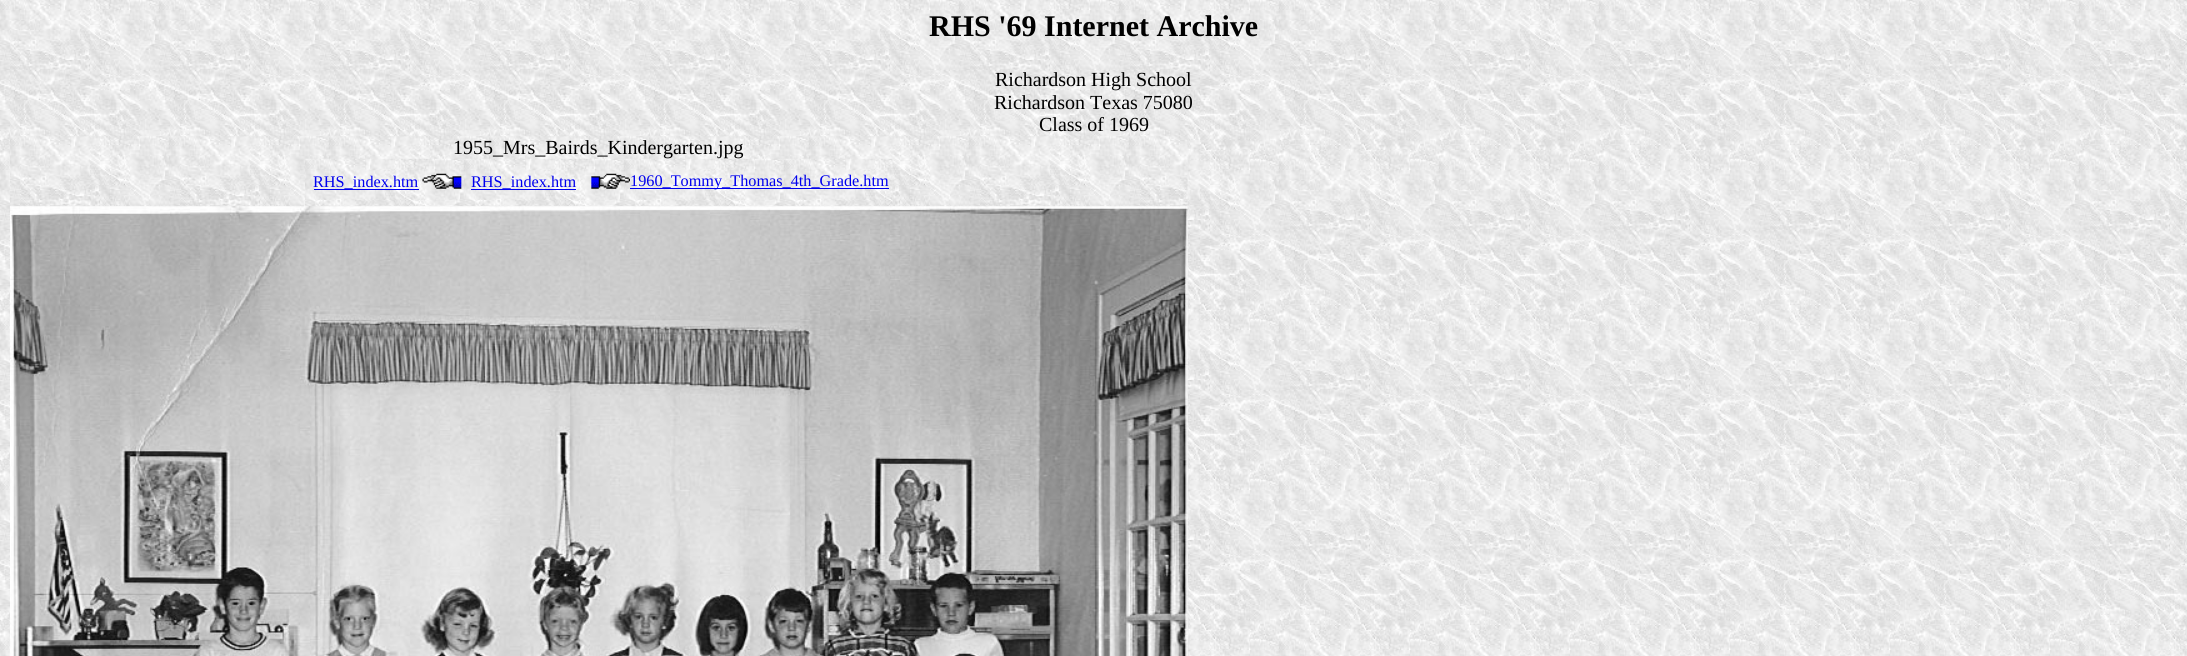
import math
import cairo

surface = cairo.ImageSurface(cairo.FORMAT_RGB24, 2187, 656)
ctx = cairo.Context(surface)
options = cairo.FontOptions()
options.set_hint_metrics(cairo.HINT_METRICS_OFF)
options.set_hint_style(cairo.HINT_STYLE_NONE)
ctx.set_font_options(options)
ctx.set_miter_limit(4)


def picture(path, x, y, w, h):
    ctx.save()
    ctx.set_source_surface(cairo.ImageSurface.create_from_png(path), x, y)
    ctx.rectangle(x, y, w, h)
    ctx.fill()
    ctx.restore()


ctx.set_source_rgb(1, 1, 1)
ctx.paint()
picture("img1.png", 0, 0, 2187, 656)
ctx.select_font_face("Liberation Serif", cairo.FONT_SLANT_NORMAL, cairo.FONT_WEIGHT_BOLD)
ctx.set_font_size(30)
ctx.set_source_rgb(0, 0, 0)
ctx.move_to(929, 36)
ctx.show_text("RHS '69 Internet Archive")
ctx.select_font_face("Liberation Serif")
ctx.set_font_size(20)
ctx.move_to(995, 86)
ctx.show_text("Richardson High School")
ctx.move_to(994, 109)
ctx.show_text("Richardson Texas 75080")
ctx.move_to(1039, 131)
ctx.show_text("Class of 1969")
picture("img2.png", 10, 136, 1178, 520)
picture("img3.png", 305, 158, 588, 49)
ctx.move_to(453, 154)
ctx.show_text("1955_Mrs_Bairds_Kindergarten.jpg")
ctx.set_source_rgb(0, 0, 0.933)
ctx.rectangle(314, 189, 105, 1)
ctx.fill()
ctx.set_font_size(16.25)
ctx.move_to(313, 187)
ctx.show_text("RHS_index.htm")
picture("img4.png", 422, 173, 40, 16)
ctx.rectangle(471, 189, 105, 1)
ctx.fill()
ctx.move_to(471, 187)
ctx.show_text("RHS_index.htm")
picture("img5.png", 591, 173, 39, 16)
ctx.rectangle(630, 188, 259, 1)
ctx.fill()
ctx.move_to(630, 186)
ctx.show_text("1960_Tommy_Thomas_4th_Grade.htm")
picture("img6.png", 10, 206, 1178, 450)
surface.write_to_png("page.png")
